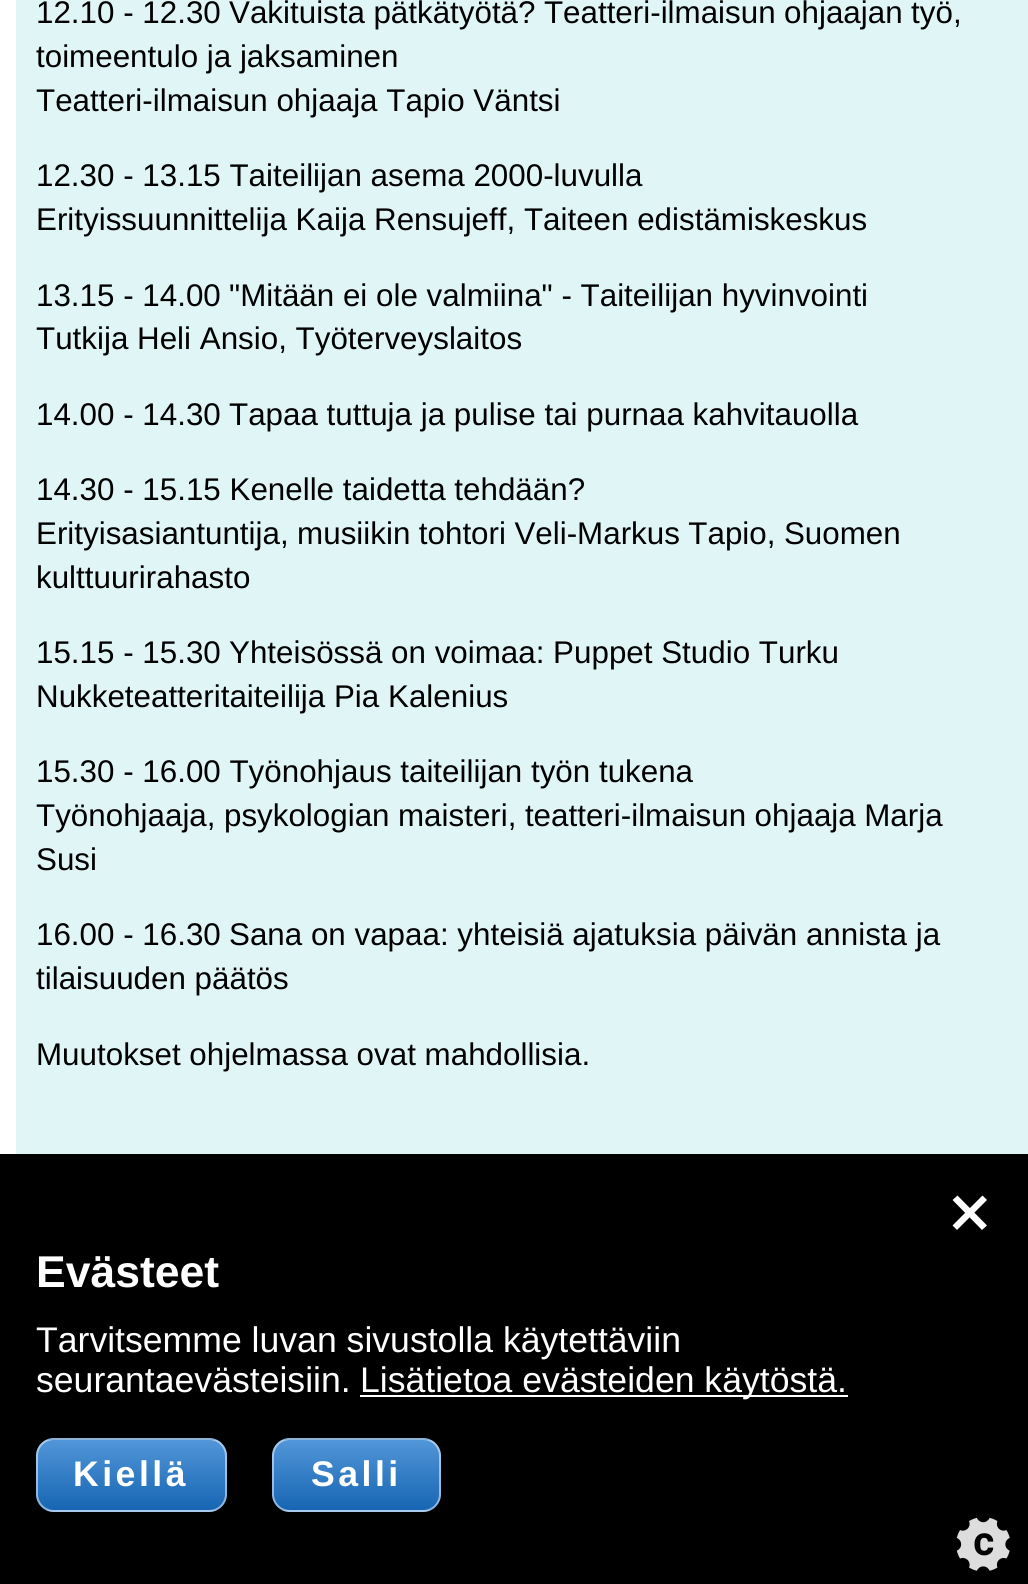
import math
import cairo

surface = cairo.ImageSurface(cairo.FORMAT_RGB24, 1028, 1584)
ctx = cairo.Context(surface)
options = cairo.FontOptions()
options.set_hint_metrics(cairo.HINT_METRICS_OFF)
options.set_hint_style(cairo.HINT_STYLE_NONE)
ctx.set_font_options(options)
ctx.set_miter_limit(4)


def spaced_text(x, y, s, letter, word):
    ctx.move_to(x, y)
    for ch in s:
        ctx.show_text(ch)
        ctx.rel_move_to(letter + word * (ch == ' '), 0)


def round_rect(x, y, w, h, r):
    ctx.new_sub_path()
    for i, (u, v) in enumerate([(x + w - r, y + h - r), (x + r, y + h - r), (x + r, y + r), (x + w - r, y + r)]):
        ctx.arc(u, v, r, i * math.pi / 2, (i + 1) * math.pi / 2)
    ctx.close_path()


def picture(path, x, y, w, h):
    ctx.save()
    ctx.set_source_surface(cairo.ImageSurface.create_from_png(path), x, y)
    ctx.rectangle(x, y, w, h)
    ctx.fill()
    ctx.restore()


ctx.set_source_rgb(1, 1, 1)
ctx.paint()
ctx.set_source_rgb(0.878, 0.961, 0.961)
ctx.rectangle(16, 0, 1012, 1154)
ctx.fill()
ctx.select_font_face("Liberation Sans")
ctx.set_font_size(31.35)
ctx.set_source_rgb(0, 0, 0)
ctx.move_to(36, 23)
ctx.show_text("12.10 - 12.30")
spaced_text(229, 23, "Vakituista pätkätyötä? Teatteri-ilmaisun ohjaajan työ,", 0, -0.25)
ctx.move_to(36, 67)
ctx.show_text("toimeentulo ja jaksaminen")
ctx.move_to(36, 111)
ctx.show_text("Teatteri-ilmaisun ohjaaja Tapio Väntsi")
ctx.move_to(36, 186)
ctx.show_text("12.30 - 13.15 Taiteilijan asema 2000-luvulla")
ctx.move_to(36, 230)
ctx.show_text("Erityissuunnittelija Kaija Rensujeff, Taiteen edistämiskeskus")
ctx.move_to(36, 306)
ctx.show_text("13.15 - 14.00")
ctx.move_to(229, 306)
ctx.show_text("\"Mitään ei ole valmiina\" - Taiteilijan hyvinvointi")
ctx.move_to(36, 349)
ctx.show_text("Tutkija Heli Ansio, Työterveyslaitos")
ctx.move_to(36, 425)
ctx.show_text("14.00 - 14.30")
ctx.move_to(229, 425)
ctx.show_text("Tapaa tuttuja ja pulise tai purnaa kahvitauolla")
ctx.move_to(36, 500)
ctx.show_text("14.30 - 15.15 Kenelle taidetta tehdään?")
spaced_text(36, 544, "Erityisasiantuntija, musiikin tohtori Veli-Markus Tapio, Suomen", 0, -0.25)
ctx.move_to(36, 588)
ctx.show_text("kulttuurirahasto")
ctx.move_to(36, 663)
ctx.show_text("15.15 - 15.30")
ctx.move_to(229, 663)
ctx.show_text("Yhteisössä on voimaa: Puppet Studio Turku")
ctx.move_to(36, 707)
ctx.show_text("Nukketeatteritaiteilija Pia Kalenius")
ctx.move_to(36, 782)
ctx.show_text("15.30 - 16.00 Työnohjaus taiteilijan työn tukena")
spaced_text(36, 826, "Työnohjaaja, psykologian maisteri, teatteri-ilmaisun ohjaaja Marja", 0, -0.25)
ctx.move_to(36, 870)
ctx.show_text("Susi")
ctx.move_to(36, 945)
ctx.show_text("16.00 - 16.30")
ctx.move_to(229, 945)
ctx.show_text("Sana on vapaa: yhteisiä ajatuksia päivän annista ja")
ctx.move_to(36, 989)
ctx.show_text("tilaisuuden päätös")
ctx.move_to(36, 1065)
ctx.show_text("Muutokset ohjelmassa ovat mahdollisia.")
ctx.rectangle(0, 1154, 1028, 430)
ctx.fill()
ctx.set_source_rgb(1, 1, 1)
ctx.new_path()
ctx.move_to(987, 1200)
ctx.line_to(982.5, 1195.5)
ctx.line_to(952.5, 1225.5)
ctx.line_to(957, 1230)
ctx.close_path()
ctx.fill()
ctx.new_path()
ctx.move_to(957.5, 1195.5)
ctx.line_to(952.5, 1200)
ctx.line_to(982, 1230)
ctx.line_to(987, 1225.5)
ctx.close_path()
ctx.fill()
ctx.select_font_face("Liberation Sans", cairo.FONT_SLANT_NORMAL, cairo.FONT_WEIGHT_BOLD)
ctx.set_font_size(44.5)
ctx.move_to(36, 1287)
ctx.show_text("Evästeet")
ctx.select_font_face("Liberation Sans")
ctx.set_font_size(35.6)
ctx.move_to(36, 1352)
ctx.show_text("Tarvitsemme luvan sivustolla käytettäviin")
ctx.move_to(36, 1392)
ctx.show_text("seurantaevästeisiin.")
ctx.rectangle(360, 1395, 488, 2)
ctx.fill()
ctx.move_to(360, 1392)
ctx.show_text("Lisätietoa evästeiden käytöstä.")
ctx.save()
round_rect(36, 1438, 191, 74, 18)
ctx.clip()
gradient = cairo.LinearGradient(132, 1370, 132, 1440)
gradient.add_color_stop_rgba(0, 0.318, 0.588, 0.847, 1)
gradient.add_color_stop_rgba(1, 0.09, 0.396, 0.702, 1)
ctx.set_source(gradient)
ctx.rectangle(46, 1438, 171, 2)
ctx.fill()
gradient = cairo.LinearGradient(132, 1440, 132, 1510)
gradient.add_color_stop_rgba(0, 0.318, 0.588, 0.847, 1)
gradient.add_color_stop_rgba(1, 0.09, 0.396, 0.702, 1)
ctx.set_source(gradient)
ctx.rectangle(36, 1440, 191, 70)
ctx.fill()
gradient = cairo.LinearGradient(132, 1510, 132, 1580)
gradient.add_color_stop_rgba(0, 0.318, 0.588, 0.847, 1)
gradient.add_color_stop_rgba(1, 0.09, 0.396, 0.702, 1)
ctx.set_source(gradient)
ctx.rectangle(46, 1510, 171, 2)
ctx.fill()
ctx.restore()
round_rect(37, 1439, 189, 72, 17)
ctx.set_source_rgba(1, 1, 1, 0.5)
ctx.stroke()
ctx.select_font_face("Liberation Sans", cairo.FONT_SLANT_NORMAL, cairo.FONT_WEIGHT_BOLD)
ctx.set_source_rgb(1, 1, 1)
spaced_text(73, 1486, "Kiellä", 3.5, 0)
ctx.save()
round_rect(272, 1438, 169, 74, 18)
ctx.clip()
gradient = cairo.LinearGradient(357, 1370, 357, 1440)
gradient.add_color_stop_rgba(0, 0.318, 0.588, 0.847, 1)
gradient.add_color_stop_rgba(1, 0.09, 0.396, 0.702, 1)
ctx.set_source(gradient)
ctx.rectangle(282, 1438, 149, 2)
ctx.fill()
gradient = cairo.LinearGradient(357, 1440, 357, 1510)
gradient.add_color_stop_rgba(0, 0.318, 0.588, 0.847, 1)
gradient.add_color_stop_rgba(1, 0.09, 0.396, 0.702, 1)
ctx.set_source(gradient)
ctx.rectangle(272, 1440, 169, 70)
ctx.fill()
gradient = cairo.LinearGradient(357, 1510, 357, 1580)
gradient.add_color_stop_rgba(0, 0.318, 0.588, 0.847, 1)
gradient.add_color_stop_rgba(1, 0.09, 0.396, 0.702, 1)
ctx.set_source(gradient)
ctx.rectangle(282, 1510, 149, 2)
ctx.fill()
ctx.restore()
round_rect(273, 1439, 167, 72, 17)
ctx.set_source_rgba(1, 1, 1, 0.5)
ctx.stroke()
ctx.set_source_rgb(1, 1, 1)
spaced_text(311, 1486, "Salli", 3.5, 0)
picture("img1.png", 956, 1517, 54, 54)
surface.write_to_png("page.png")
